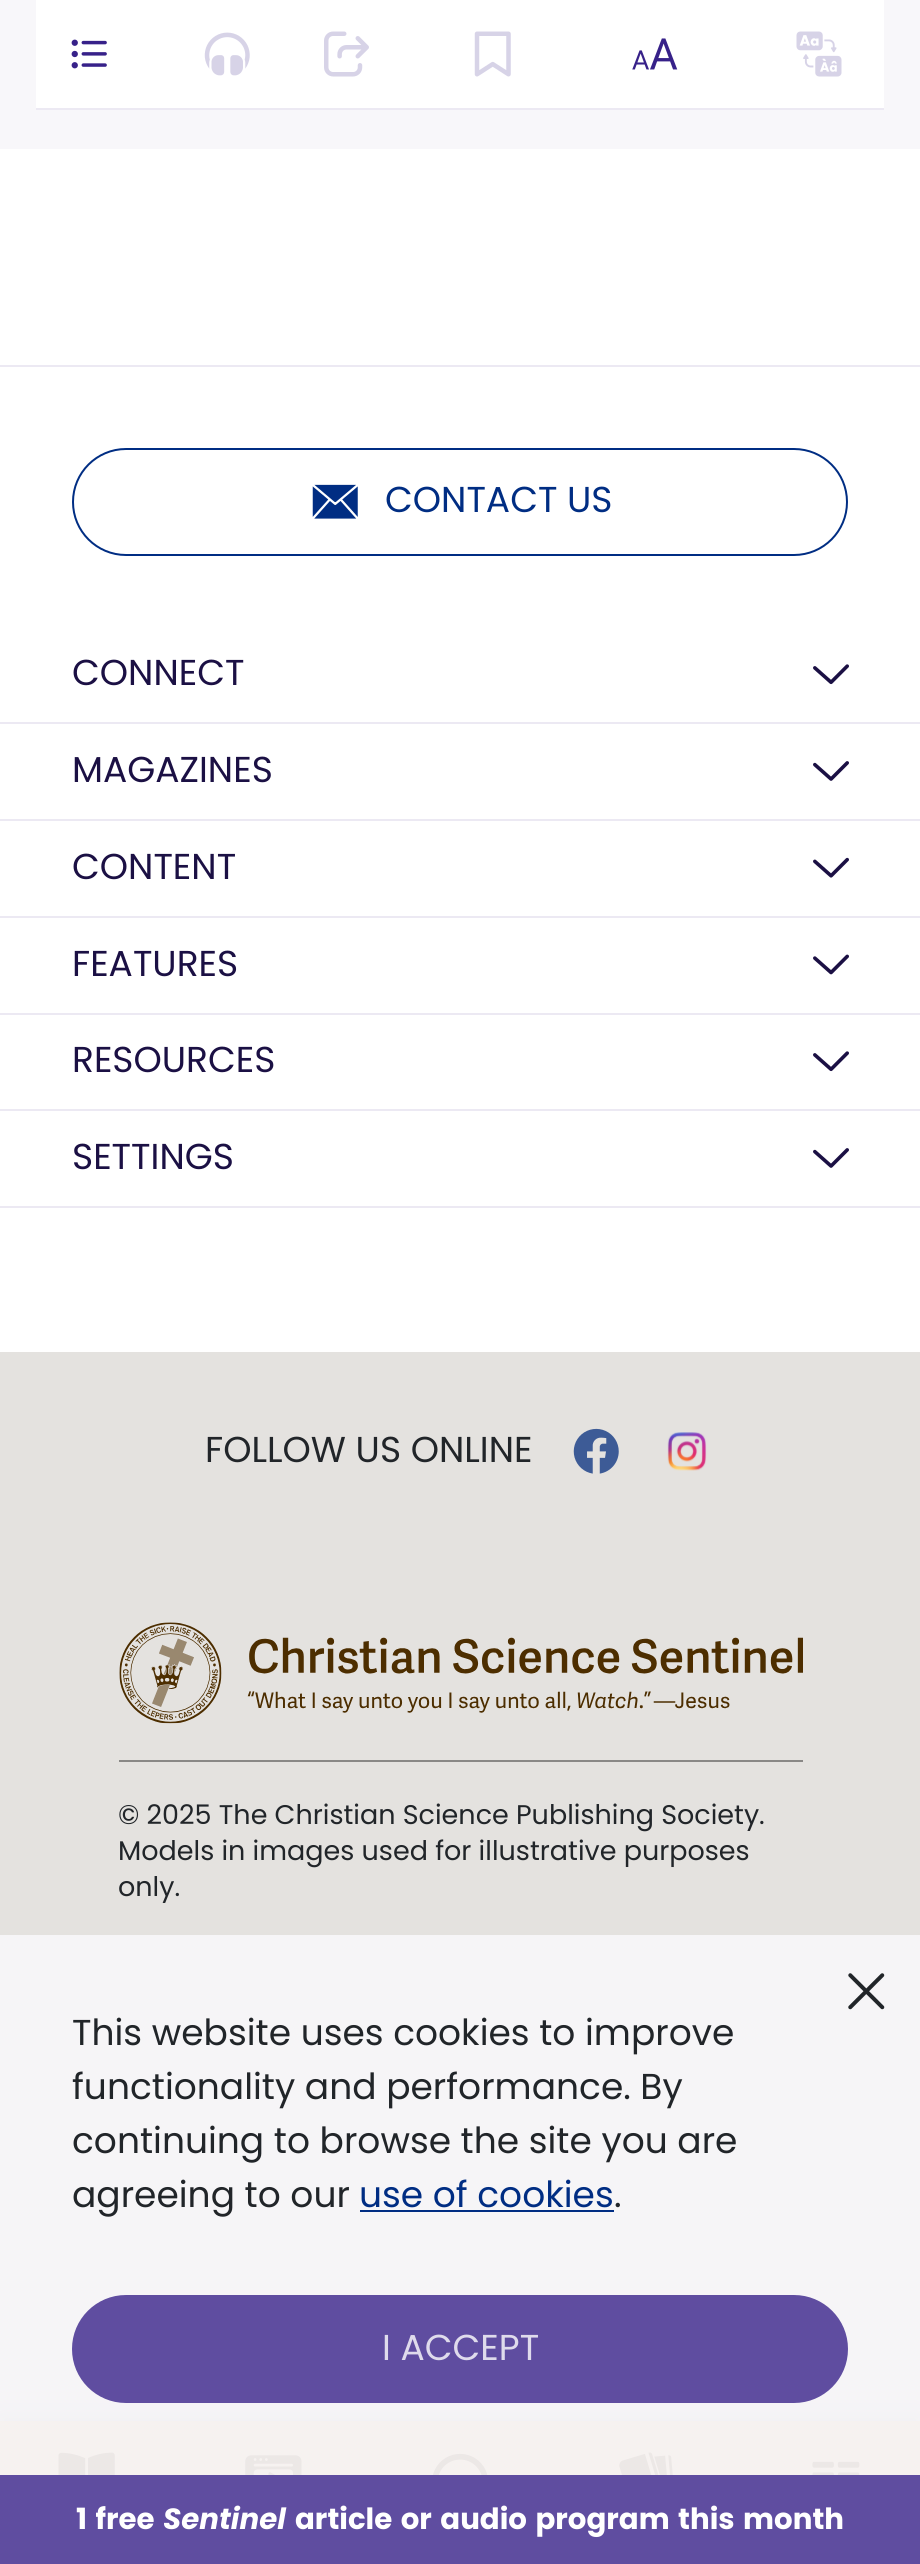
import math
import cairo

surface = cairo.ImageSurface(cairo.FORMAT_RGB24, 920, 2564)
ctx = cairo.Context(surface)
options = cairo.FontOptions()
options.set_hint_metrics(cairo.HINT_METRICS_OFF)
options.set_hint_style(cairo.HINT_STYLE_NONE)
ctx.set_font_options(options)
ctx.set_miter_limit(4)


def spaced_text(x, y, s, letter, word):
    ctx.move_to(x, y)
    for ch in s:
        ctx.show_text(ch)
        ctx.rel_move_to(letter + word * (ch == ' '), 0)


def round_rect(x, y, w, h, r):
    ctx.new_sub_path()
    for i, (u, v) in enumerate([(x + w - r, y + h - r), (x + r, y + h - r), (x + r, y + r), (x + w - r, y + r)]):
        ctx.arc(u, v, r, i * math.pi / 2, (i + 1) * math.pi / 2)
    ctx.close_path()


def shadow(x, y, w, h, r, blur, alpha):
    ctx.push_group_with_content(cairo.CONTENT_ALPHA)
    ctx.set_operator(cairo.OPERATOR_SOURCE)
    for i in range(15, -16, -2):
        e = blur * i / 6
        if min(w, h) + 2 * e > 0:
            ctx.set_source_rgba(0, 0, 0, alpha * math.erfc((i - 1) / 8.5) / 2)
            round_rect(x - e, y - e, w + 2 * e, h + 2 * e, max(0, min(r + e + blur * .6, min(w, h) / 2 + e)))
            ctx.fill()
    ctx.mask(ctx.pop_group())


def picture(path, x, y, w, h):
    ctx.save()
    ctx.set_source_surface(cairo.ImageSurface.create_from_png(path), x, y)
    ctx.rectangle(x, y, w, h)
    ctx.fill()
    ctx.restore()


ctx.set_source_rgb(1, 1, 1)
ctx.paint()
ctx.set_source_rgb(0.969, 0.965, 0.98)
ctx.rectangle(0, 0, 920, 149)
ctx.fill()
ctx.set_source_rgb(1, 1, 1)
ctx.rectangle(36, 0, 848, 108)
ctx.fill()
ctx.set_source_rgb(0.922, 0.914, 0.953)
ctx.rectangle(36, 108, 848, 2)
ctx.fill()
picture("img1.png", 71, 39, 36, 30)
picture("img2.png", 204, 32, 46, 44)
picture("img3.png", 324, 31, 45, 46)
picture("img4.png", 474, 31, 37, 46)
picture("img5.png", 632, 38, 46, 32)
picture("img6.png", 796, 31, 46, 46)
ctx.rectangle(0, 365, 920, 2)
ctx.fill()
round_rect(73, 449, 774, 106, 53)
ctx.set_source_rgb(0, 0.176, 0.514)
ctx.stroke()
picture("img7.png", 312, 484, 46, 35)
ctx.select_font_face("Poppins")
ctx.set_font_size(36)
ctx.move_to(385, 512)
ctx.show_text("CONTACT US")
ctx.set_source_rgb(0.922, 0.914, 0.953)
ctx.rectangle(0, 722, 920, 2)
ctx.fill()
ctx.set_source_rgb(0.106, 0.063, 0.267)
ctx.move_to(72, 685)
ctx.show_text("CONNECT")
picture("img8.png", 813, 664, 36, 21)
ctx.set_source_rgb(0.922, 0.914, 0.953)
ctx.rectangle(0, 819, 920, 2)
ctx.fill()
ctx.set_source_rgb(0.106, 0.063, 0.267)
ctx.move_to(72, 782)
ctx.show_text("MAGAZINES")
picture("img9.png", 813, 761, 36, 20)
ctx.set_source_rgb(0.922, 0.914, 0.953)
ctx.rectangle(0, 916, 920, 2)
ctx.fill()
ctx.set_source_rgb(0.106, 0.063, 0.267)
ctx.move_to(72, 879)
ctx.show_text("CONTENT")
picture("img10.png", 813, 857, 36, 21)
ctx.set_source_rgb(0.922, 0.914, 0.953)
ctx.rectangle(0, 1013, 920, 2)
ctx.fill()
ctx.set_source_rgb(0.106, 0.063, 0.267)
ctx.move_to(72, 976)
ctx.show_text("FEATURES")
picture("img11.png", 813, 954, 36, 21)
ctx.set_source_rgb(0.922, 0.914, 0.953)
ctx.rectangle(0, 1109, 920, 2)
ctx.fill()
ctx.set_source_rgb(0.106, 0.063, 0.267)
ctx.move_to(72, 1072)
ctx.show_text("RESOURCES")
picture("img8.png", 813, 1051, 36, 21)
ctx.set_source_rgb(0.922, 0.914, 0.953)
ctx.rectangle(0, 1206, 920, 2)
ctx.fill()
ctx.set_source_rgb(0.106, 0.063, 0.267)
ctx.move_to(72, 1169)
ctx.show_text("SETTINGS")
picture("img9.png", 813, 1148, 36, 20)
ctx.set_source_rgb(0.894, 0.886, 0.875)
ctx.rectangle(0, 1352, 920, 1069)
ctx.fill()
ctx.set_source_rgb(0.129, 0.145, 0.161)
ctx.move_to(205, 1462)
ctx.show_text("FOLLOW US ONLINE")
picture("img12.png", 573, 1428, 46, 46)
picture("img13.png", 667, 1432, 40, 39)
picture("img14.png", 119, 1622, 684, 102)
ctx.set_source_rgb(0.537, 0.533, 0.525)
ctx.rectangle(119, 1760, 684, 2)
ctx.fill()
ctx.set_font_size(27)
ctx.set_source_rgb(0.129, 0.145, 0.161)
ctx.move_to(118, 1824)
ctx.show_text("© 2025 The Christian Science Publishing Society.")
ctx.move_to(118, 1860)
ctx.show_text("Models in images used for illustrative purposes")
ctx.move_to(118, 1896)
ctx.show_text("only.")
ctx.set_source_rgb(0, 0, 0)
shadow(0, 2414, 920, 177, 0, 9, 0.2)
ctx.set_source_rgb(0.898, 0.741, 0.502)
ctx.rectangle(0, 2421, 920, 54)
ctx.fill()
picture("img16.png", 58, 2452, 57, 23)
picture("img17.png", 245, 2455, 57, 20)
picture("img18.png", 433, 2453, 55, 22)
picture("img19.png", 619, 2452, 54, 23)
picture("img20.png", 812, 2461, 48, 14)
ctx.set_source_rgba(0.969, 0.965, 0.98, 0.92)
ctx.rectangle(0, 1935, 920, 540)
ctx.fill()
picture("img15.png", 848, 1973, 37, 37)
ctx.set_font_size(36)
ctx.set_source_rgb(0.129, 0.145, 0.161)
ctx.move_to(72, 2045)
ctx.show_text("This website uses cookies to improve")
ctx.move_to(72, 2099)
ctx.show_text("functionality and performance. By")
ctx.move_to(72, 2153)
ctx.show_text("continuing to browse the site you are")
ctx.move_to(72, 2207)
ctx.show_text("agreeing to our")
ctx.set_source_rgb(0, 0.176, 0.514)
ctx.move_to(359, 2207)
ctx.show_text("use of cookies")
ctx.rectangle(360, 2210, 254, 2)
ctx.fill()
ctx.set_source_rgb(0.129, 0.145, 0.161)
ctx.move_to(614, 2207)
ctx.show_text(".")
ctx.set_source_rgb(0.373, 0.302, 0.627)
round_rect(73, 2296, 774, 106, 53)
ctx.fill_preserve()
ctx.stroke()
ctx.set_source_rgb(0.875, 0.859, 0.925)
ctx.move_to(382, 2360)
ctx.show_text("I ACCEPT")
ctx.set_source_rgb(0.373, 0.302, 0.627)
ctx.rectangle(0, 2475, 920, 89)
ctx.fill()
ctx.select_font_face("Poppins", cairo.FONT_SLANT_NORMAL, cairo.FONT_WEIGHT_BOLD)
ctx.set_font_size(29.25)
ctx.set_source_rgb(1, 1, 1)
spaced_text(76, 2529, "1 free", 0, 2.25)
ctx.select_font_face("Poppins", cairo.FONT_SLANT_ITALIC, cairo.FONT_WEIGHT_BOLD)
ctx.move_to(163, 2529)
ctx.show_text("Sentinel")
ctx.select_font_face("Poppins", cairo.FONT_SLANT_NORMAL, cairo.FONT_WEIGHT_BOLD)
spaced_text(295, 2529, "article or audio program this month", 0, 2.25)
surface.write_to_png("page.png")
